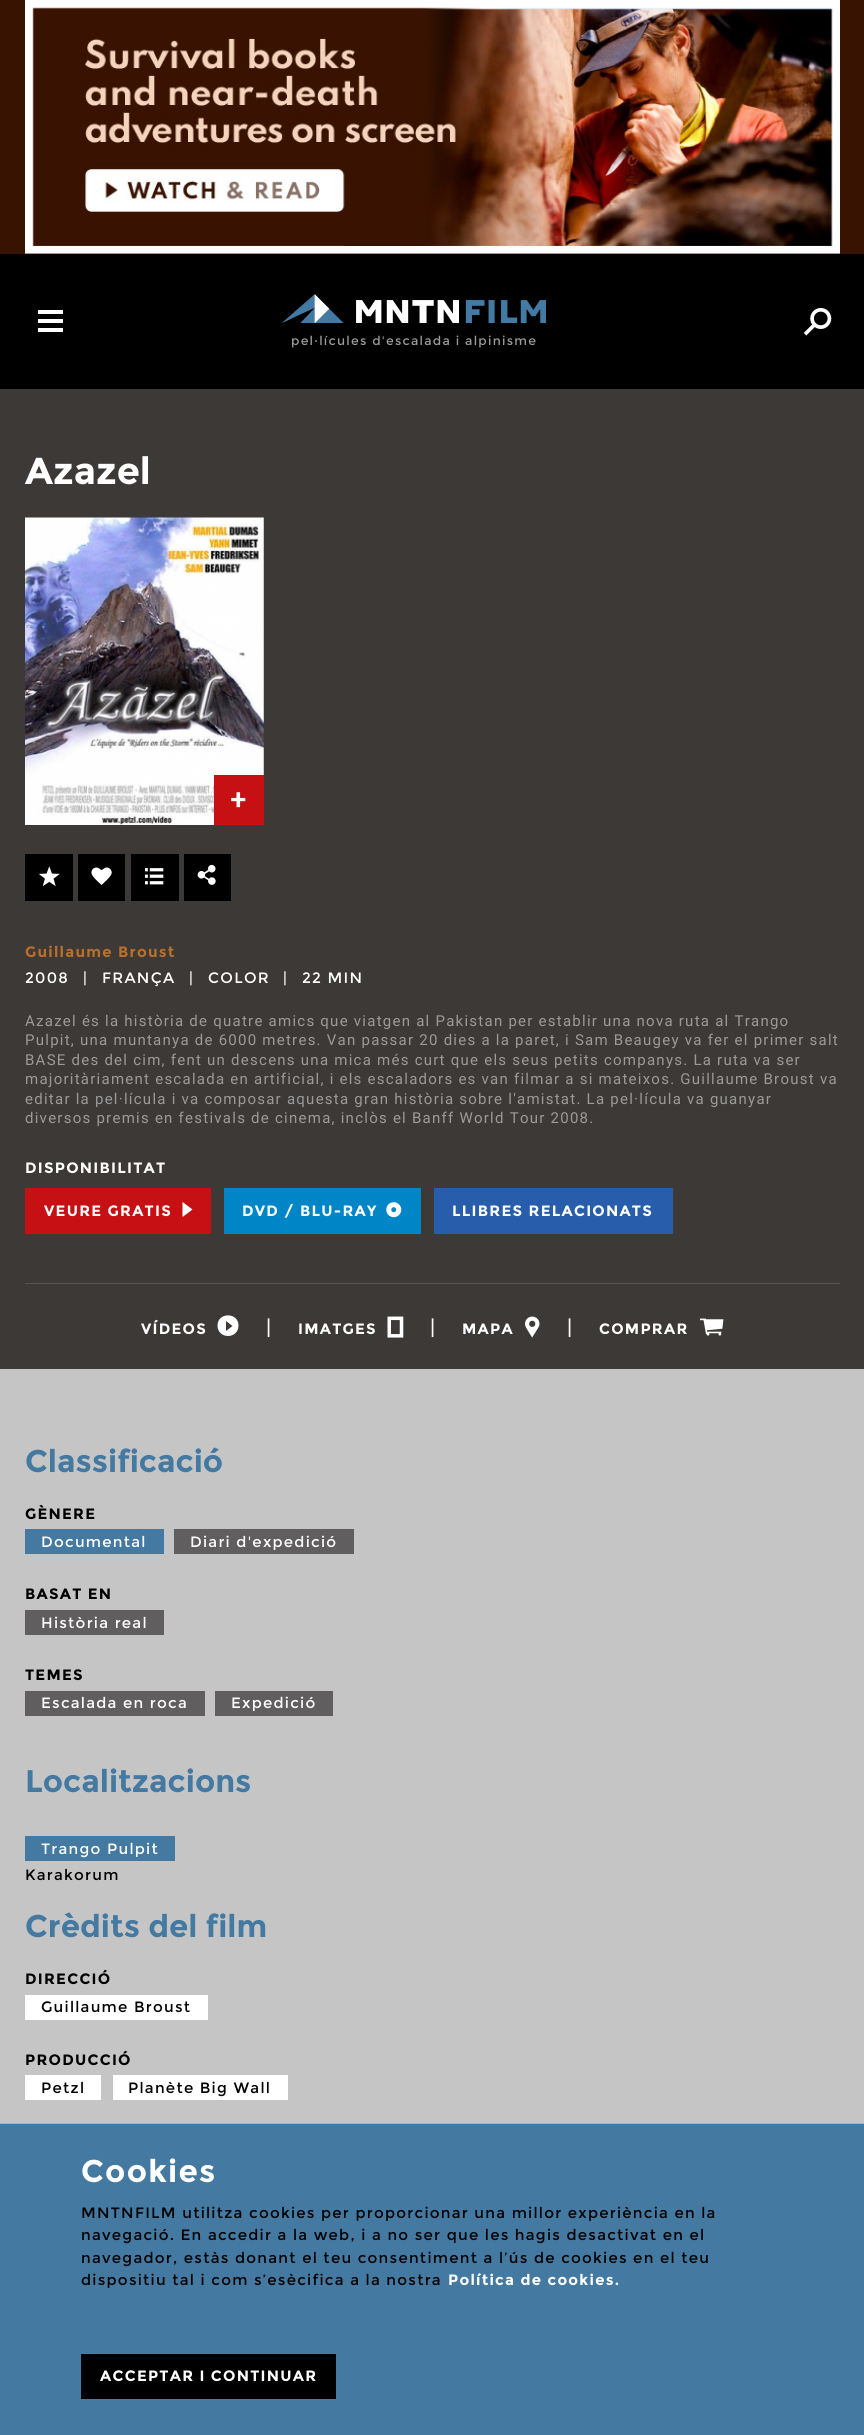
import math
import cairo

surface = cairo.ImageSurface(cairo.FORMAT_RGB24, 864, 2435)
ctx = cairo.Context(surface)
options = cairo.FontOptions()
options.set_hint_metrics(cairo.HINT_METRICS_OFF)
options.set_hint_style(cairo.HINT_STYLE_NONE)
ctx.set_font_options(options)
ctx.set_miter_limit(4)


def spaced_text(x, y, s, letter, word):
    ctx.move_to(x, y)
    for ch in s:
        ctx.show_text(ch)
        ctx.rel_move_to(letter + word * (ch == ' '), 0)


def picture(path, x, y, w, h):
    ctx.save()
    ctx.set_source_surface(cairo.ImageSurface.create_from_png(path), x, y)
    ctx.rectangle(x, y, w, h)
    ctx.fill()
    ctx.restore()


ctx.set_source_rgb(0, 0, 0)
ctx.paint()
ctx.set_source_rgb(0.224, 0.075, 0.004)
ctx.rectangle(0, 0, 864, 254)
ctx.fill()
picture("img1.png", 25, 0, 815, 254)
ctx.set_source_rgb(1, 1, 1)
ctx.rectangle(38, 310, 25, 4)
ctx.fill()
ctx.rectangle(38, 319, 25, 4)
ctx.fill()
ctx.rectangle(38, 328, 25, 4)
ctx.fill()
picture("img2.png", 803, 308, 29, 28)
picture("img3.png", 281, 294, 265, 29)
ctx.select_font_face("Montserrat")
ctx.set_font_size(12.5)
ctx.set_source_rgb(0.604, 0.604, 0.604)
spaced_text(291, 345, "pel·lícules d'escalada i alpinisme", 1.25, 0)
ctx.set_source_rgb(0.773, 0.773, 0.773)
ctx.rectangle(0, 1369, 864, 754)
ctx.fill()
ctx.set_source_rgb(0.239, 0.224, 0.212)
ctx.rectangle(0, 389, 864, 980)
ctx.fill()
ctx.select_font_face("Montserrat", cairo.FONT_SLANT_NORMAL, cairo.FONT_WEIGHT_BOLD)
ctx.set_font_size(37.5)
ctx.set_source_rgb(1, 1, 1)
ctx.move_to(25, 484)
ctx.show_text("Azazel")
picture("img4.png", 25, 517, 239, 308)
ctx.set_source_rgb(0.78, 0.063, 0.082)
ctx.rectangle(214, 775, 50, 50)
ctx.fill()
picture("img5.png", 231, 792, 15, 16)
ctx.set_source_rgb(0, 0, 0)
ctx.rectangle(25, 854, 48, 47)
ctx.fill()
picture("img6.png", 38, 866, 22, 21)
ctx.rectangle(78, 854, 47, 47)
ctx.fill()
picture("img7.png", 91, 867, 21, 18)
ctx.rectangle(131, 854, 48, 47)
ctx.fill()
picture("img8.png", 145, 868, 19, 17)
ctx.rectangle(184, 854, 47, 47)
ctx.fill()
picture("img9.png", 197, 864, 19, 21)
ctx.set_font_size(15)
ctx.set_source_rgb(0.729, 0.435, 0.169)
spaced_text(25, 957, "Guillaume Broust", 1.25, 0)
ctx.select_font_face("Montserrat")
ctx.set_source_rgb(1, 1, 1)
spaced_text(25, 983, "2008", 1.25, 0)
spaced_text(83, 983, "|", 1.25, 0)
spaced_text(102, 983, "FRANÇA", 1.25, 0)
spaced_text(189, 983, "|", 1.25, 0)
spaced_text(208, 983, "COLOR", 1.25, 0)
spaced_text(283, 983, "|", 1.25, 0)
spaced_text(302, 983, "22 MIN", 1.25, 0)
ctx.select_font_face("Roboto")
ctx.set_source_rgb(0.604, 0.604, 0.604)
spaced_text(25, 1026, "Azazel és la història de quatre amics que viatgen al Pakistan per establir una nova ruta al Trango", 1.25, 0)
spaced_text(25, 1045, "Pulpit, una muntanya de 6000 metres. Van passar 20 dies a la paret, i Sam Beaugey va fer el primer salt", 1.25, 0)
spaced_text(25, 1065, "BASE des del cim, fent un descens una mica més curt que els seus petits companys. La ruta va ser", 1.25, 0)
spaced_text(25, 1084, "majoritàriament escalada en artificial, i els escaladors es van filmar a si mateixos. Guillaume Broust va", 1.25, 0)
spaced_text(25, 1104, "editar la pel·lícula i va composar aquesta gran història sobre l'amistat. La pel·lícula va guanyar", 1.25, 0)
spaced_text(25, 1123, "diversos premis en festivals de cinema, inclòs el Banff World Tour 2008.", 1.25, 0)
ctx.select_font_face("Montserrat", cairo.FONT_SLANT_NORMAL, cairo.FONT_WEIGHT_BOLD)
ctx.set_source_rgb(1, 1, 1)
spaced_text(25, 1173, "DISPONIBILITAT", 1.25, 0)
ctx.set_source_rgb(0.78, 0.063, 0.082)
ctx.rectangle(25, 1188, 186, 46)
ctx.fill()
ctx.set_source_rgb(1, 1, 1)
spaced_text(44, 1216, "VEURE GRATIS", 1.25, 0)
ctx.new_path()
ctx.move_to(182.5, 1217)
ctx.line_to(182.5, 1202)
ctx.line_to(192.5, 1209.5)
ctx.close_path()
ctx.fill()
ctx.set_source_rgb(0, 0.522, 0.776)
ctx.rectangle(224, 1188, 197, 46)
ctx.fill()
ctx.set_source_rgb(1, 1, 1)
spaced_text(242, 1216, "DVD / BLU-RAY", 1.25, 0)
picture("img10.png", 386, 1202, 16, 16)
ctx.set_source_rgb(0.153, 0.365, 0.667)
ctx.rectangle(434, 1188, 239, 46)
ctx.fill()
ctx.set_source_rgb(1, 1, 1)
spaced_text(452, 1216, "LLIBRES RELACIONATS", 1.25, 0)
ctx.set_source_rgb(0.333, 0.333, 0.333)
ctx.rectangle(25, 1283, 815, 1)
ctx.fill()
ctx.set_source_rgb(1, 1, 1)
spaced_text(141, 1334, "VÍDEOS", 1.25, 0)
ctx.new_path()
ctx.move_to(226, 1331)
ctx.line_to(232.5, 1326)
ctx.line_to(226, 1321)
ctx.close_path()
ctx.move_to(217.5, 1325.5)
ctx.curve_to(217.5, 1312, 238.5, 1312, 238.5, 1325.5)
ctx.curve_to(238.5, 1339.5, 217.5, 1339.5, 217.5, 1325.5)
ctx.close_path()
ctx.fill()
ctx.select_font_face("Montserrat")
ctx.set_font_size(20)
spaced_text(266, 1334, "|", 1.25, 0)
ctx.select_font_face("Montserrat", cairo.FONT_SLANT_NORMAL, cairo.FONT_WEIGHT_BOLD)
ctx.set_font_size(15)
spaced_text(298, 1334, "IMATGES", 1.25, 0)
picture("img11.png", 387, 1316, 17, 22)
ctx.select_font_face("Montserrat")
ctx.set_font_size(20)
spaced_text(430, 1334, "|", 1.25, 0)
ctx.select_font_face("Montserrat", cairo.FONT_SLANT_NORMAL, cairo.FONT_WEIGHT_BOLD)
ctx.set_font_size(15)
spaced_text(462, 1334, "MAPA", 1.25, 0)
picture("img12.png", 525, 1316, 15, 22)
ctx.select_font_face("Montserrat")
ctx.set_font_size(20)
spaced_text(567, 1334, "|", 1.25, 0)
ctx.select_font_face("Montserrat", cairo.FONT_SLANT_NORMAL, cairo.FONT_WEIGHT_BOLD)
ctx.set_font_size(15)
spaced_text(599, 1334, "COMPRAR", 1.25, 0)
picture("img13.png", 700, 1318, 24, 18)
ctx.set_font_size(31.25)
ctx.set_source_rgb(0.267, 0.475, 0.631)
ctx.move_to(25, 1472)
ctx.show_text("Classificació")
ctx.set_font_size(15)
ctx.set_source_rgb(0, 0, 0)
spaced_text(25, 1519, "GÈNERE", 1.25, 0)
ctx.set_source_rgb(0.267, 0.475, 0.631)
ctx.rectangle(25, 1529, 139, 25)
ctx.fill()
ctx.select_font_face("Montserrat")
ctx.set_source_rgb(1, 1, 1)
spaced_text(41, 1547, "Documental", 1.25, 0)
ctx.set_source_rgb(0.376, 0.369, 0.373)
ctx.rectangle(174, 1529, 180, 25)
ctx.fill()
ctx.set_source_rgb(1, 1, 1)
spaced_text(190, 1547, "Diari d'expedició", 1.25, 0)
ctx.select_font_face("Montserrat", cairo.FONT_SLANT_NORMAL, cairo.FONT_WEIGHT_BOLD)
ctx.set_source_rgb(0, 0, 0)
spaced_text(25, 1599, "BASAT EN", 1.25, 0)
ctx.set_source_rgb(0.376, 0.369, 0.373)
ctx.rectangle(25, 1610, 139, 25)
ctx.fill()
ctx.select_font_face("Montserrat")
ctx.set_source_rgb(1, 1, 1)
spaced_text(41, 1628, "Història real", 1.25, 0)
ctx.select_font_face("Montserrat", cairo.FONT_SLANT_NORMAL, cairo.FONT_WEIGHT_BOLD)
ctx.set_source_rgb(0, 0, 0)
spaced_text(25, 1680, "TEMES", 1.25, 0)
ctx.set_source_rgb(0.376, 0.369, 0.373)
ctx.rectangle(25, 1691, 180, 25)
ctx.fill()
ctx.select_font_face("Montserrat")
ctx.set_source_rgb(1, 1, 1)
spaced_text(41, 1708, "Escalada en roca", 1.25, 0)
ctx.set_source_rgb(0.376, 0.369, 0.373)
ctx.rectangle(215, 1691, 118, 25)
ctx.fill()
ctx.set_source_rgb(1, 1, 1)
spaced_text(231, 1708, "Expedició", 1.25, 0)
ctx.select_font_face("Montserrat", cairo.FONT_SLANT_NORMAL, cairo.FONT_WEIGHT_BOLD)
ctx.set_font_size(31.25)
ctx.set_source_rgb(0.267, 0.475, 0.631)
ctx.move_to(25, 1792)
ctx.show_text("Localitzacions")
ctx.rectangle(25, 1836, 150, 25)
ctx.fill()
ctx.select_font_face("Montserrat")
ctx.set_font_size(15)
ctx.set_source_rgb(1, 1, 1)
spaced_text(41, 1854, "Trango Pulpit", 1.25, 0)
ctx.set_source_rgb(0, 0, 0)
spaced_text(25, 1880, "Karakorum", 1.25, 0)
ctx.select_font_face("Montserrat", cairo.FONT_SLANT_NORMAL, cairo.FONT_WEIGHT_BOLD)
ctx.set_font_size(31.25)
ctx.set_source_rgb(0.267, 0.475, 0.631)
ctx.move_to(25, 1937)
ctx.show_text("Crèdits del film")
ctx.set_font_size(15)
ctx.set_source_rgb(0, 0, 0)
spaced_text(25, 1984, "DIRECCIÓ", 1.25, 0)
ctx.set_source_rgb(1, 1, 1)
ctx.rectangle(25, 1995, 183, 25)
ctx.fill()
ctx.select_font_face("Montserrat")
ctx.set_source_rgb(0, 0, 0)
spaced_text(41, 2012, "Guillaume Broust", 1.25, 0)
ctx.select_font_face("Montserrat", cairo.FONT_SLANT_NORMAL, cairo.FONT_WEIGHT_BOLD)
spaced_text(25, 2065, "PRODUCCIÓ", 1.25, 0)
ctx.set_source_rgb(1, 1, 1)
ctx.rectangle(25, 2075, 76, 25)
ctx.fill()
ctx.select_font_face("Montserrat")
ctx.set_source_rgb(0, 0, 0)
spaced_text(41, 2093, "Petzl", 1.25, 0)
ctx.set_source_rgb(1, 1, 1)
ctx.rectangle(113, 2075, 175, 25)
ctx.fill()
ctx.set_source_rgb(0, 0, 0)
spaced_text(128, 2093, "Planète Big Wall", 1.25, 0)
ctx.set_source_rgb(0.694, 0.694, 0.694)
ctx.rectangle(0, 2123, 864, 1)
ctx.fill()
ctx.set_source_rgb(0.267, 0.475, 0.631)
ctx.rectangle(0, 2124, 864, 311)
ctx.fill()
ctx.select_font_face("Montserrat", cairo.FONT_SLANT_NORMAL, cairo.FONT_WEIGHT_BOLD)
ctx.set_font_size(31.25)
ctx.set_source_rgb(1, 1, 1)
spaced_text(81, 2182, "Cookies", 1.25, 0)
ctx.select_font_face("Montserrat")
ctx.set_font_size(15)
ctx.set_source_rgb(0, 0, 0)
spaced_text(81, 2218, "MNTNFILM utilitza cookies per proporcionar una millor experiència en la", 1.25, 0)
spaced_text(81, 2240, "navegació. En accedir a la web, i a no ser que les hagis desactivat en el", 1.25, 0)
spaced_text(81, 2263, "navegador, estàs donant el teu consentiment a l’ús de cookies en el teu", 1.25, 0)
spaced_text(81, 2285, "dispositiu tal i com s’esècifica a la nostra", 1.25, 0)
ctx.select_font_face("Montserrat", cairo.FONT_SLANT_NORMAL, cairo.FONT_WEIGHT_BOLD)
ctx.set_source_rgb(1, 1, 1)
spaced_text(448, 2285, "Política de cookies.", 1.25, 0)
ctx.set_source_rgb(0, 0, 0)
ctx.rectangle(81, 2354, 255, 45)
ctx.fill()
ctx.set_source_rgb(1, 1, 1)
spaced_text(100, 2381, "ACCEPTAR I CONTINUAR", 1.25, 0)
surface.write_to_png("page.png")
